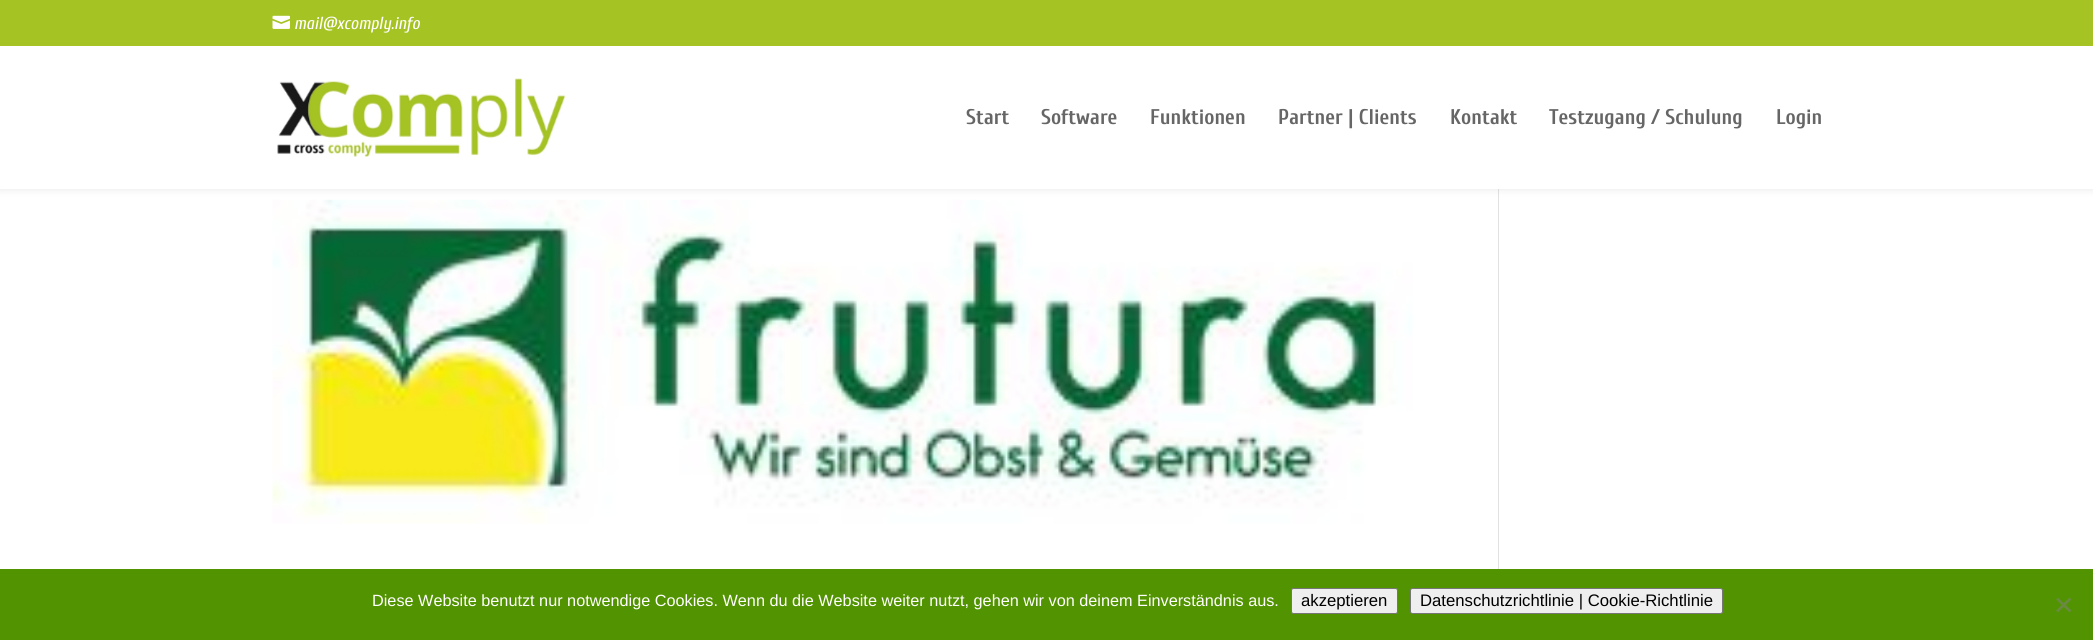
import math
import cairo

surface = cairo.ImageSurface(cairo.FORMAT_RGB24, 2093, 640)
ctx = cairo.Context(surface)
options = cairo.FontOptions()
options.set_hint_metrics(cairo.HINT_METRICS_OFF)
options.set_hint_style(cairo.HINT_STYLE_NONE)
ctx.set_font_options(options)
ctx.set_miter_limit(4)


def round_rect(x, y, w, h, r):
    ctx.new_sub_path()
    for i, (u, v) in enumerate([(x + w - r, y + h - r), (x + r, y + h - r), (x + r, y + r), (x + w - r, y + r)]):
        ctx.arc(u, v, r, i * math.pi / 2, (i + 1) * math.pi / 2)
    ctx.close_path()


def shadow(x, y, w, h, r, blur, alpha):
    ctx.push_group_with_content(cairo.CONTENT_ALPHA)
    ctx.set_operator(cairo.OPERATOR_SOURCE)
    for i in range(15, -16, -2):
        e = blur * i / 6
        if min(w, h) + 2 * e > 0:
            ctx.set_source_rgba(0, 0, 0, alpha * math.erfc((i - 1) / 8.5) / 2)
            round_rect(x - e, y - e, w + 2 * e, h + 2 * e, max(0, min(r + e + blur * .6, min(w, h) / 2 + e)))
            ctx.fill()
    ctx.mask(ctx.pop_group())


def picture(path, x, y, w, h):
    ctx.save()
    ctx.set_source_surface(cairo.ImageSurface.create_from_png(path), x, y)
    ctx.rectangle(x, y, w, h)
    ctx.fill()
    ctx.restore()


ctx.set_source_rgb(1, 1, 1)
ctx.paint()
picture("img3.png", 272, 199, 1141, 325)
ctx.set_source_rgb(0.886, 0.886, 0.886)
ctx.rectangle(1498, 189, 1, 380)
ctx.fill()
ctx.set_source_rgb(0, 0, 0)
shadow(0, 46, 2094, 143, 0, 4.5, 0.1)
ctx.set_source_rgb(0.647, 0.765, 0.137)
ctx.rectangle(0, 0, 2093, 46)
ctx.fill()
picture("img1.png", 272, 15, 18, 14)
ctx.select_font_face("Cuprum", cairo.FONT_SLANT_ITALIC)
ctx.set_font_size(17.5)
ctx.set_source_rgb(1, 1, 1)
ctx.move_to(294, 29)
ctx.show_text("mail@xcomply.info")
ctx.rectangle(0, 46, 2093, 143)
ctx.fill()
picture("img2.png", 277, 78, 289, 79)
ctx.select_font_face("Cuprum", cairo.FONT_SLANT_NORMAL, cairo.FONT_WEIGHT_BOLD)
ctx.set_font_size(21.25)
ctx.set_source_rgb(0.4, 0.4, 0.4)
ctx.move_to(966, 124)
ctx.show_text("Start")
ctx.move_to(1041, 124)
ctx.show_text("Software")
ctx.move_to(1150, 124)
ctx.show_text("Funktionen")
ctx.move_to(1278, 124)
ctx.show_text("Partner | Clients")
ctx.move_to(1450, 124)
ctx.show_text("Kontakt")
ctx.move_to(1549, 124)
ctx.show_text("Testzugang / Schulung")
ctx.move_to(1776, 124)
ctx.show_text("Login")
ctx.set_source_rgb(0.318, 0.576, 0)
ctx.rectangle(0, 569, 2093, 71)
ctx.fill()
ctx.select_font_face("Liberation Sans")
ctx.set_font_size(16.25)
ctx.set_source_rgb(1, 1, 1)
ctx.move_to(372, 606)
ctx.show_text("Diese Website benutzt nur notwendige Cookies. Wenn du die Website weiter nutzt, gehen wir von deinem Einverständnis aus.")
ctx.set_source_rgb(0.937, 0.937, 0.937)
round_rect(1291.5, 588.5, 106, 25, 2)
ctx.fill_preserve()
ctx.set_source_rgb(0.463, 0.463, 0.463)
ctx.set_line_width(1)
ctx.stroke()
ctx.set_font_size(16.7)
ctx.set_source_rgb(0, 0, 0)
ctx.move_to(1301, 606)
ctx.show_text("akzeptieren")
ctx.set_source_rgb(0.937, 0.937, 0.937)
round_rect(1410.5, 588.5, 312, 25, 2)
ctx.fill_preserve()
ctx.set_source_rgb(0.463, 0.463, 0.463)
ctx.stroke()
ctx.set_source_rgb(0, 0, 0)
ctx.move_to(1420, 606)
ctx.show_text("Datenschutzrichtlinie | Cookie-Richtlinie")
ctx.set_source_rgb(0.412, 0.541, 0.251)
ctx.new_path()
ctx.move_to(2069.5, 597.5)
ctx.line_to(2071.5, 599.5)
ctx.line_to(2058, 612.5)
ctx.line_to(2056, 610.5)
ctx.close_path()
ctx.fill()
ctx.new_path()
ctx.move_to(2056, 599.5)
ctx.line_to(2058, 597.5)
ctx.line_to(2071.5, 610.5)
ctx.line_to(2069.5, 612.5)
ctx.close_path()
ctx.fill()
surface.write_to_png("page.png")
